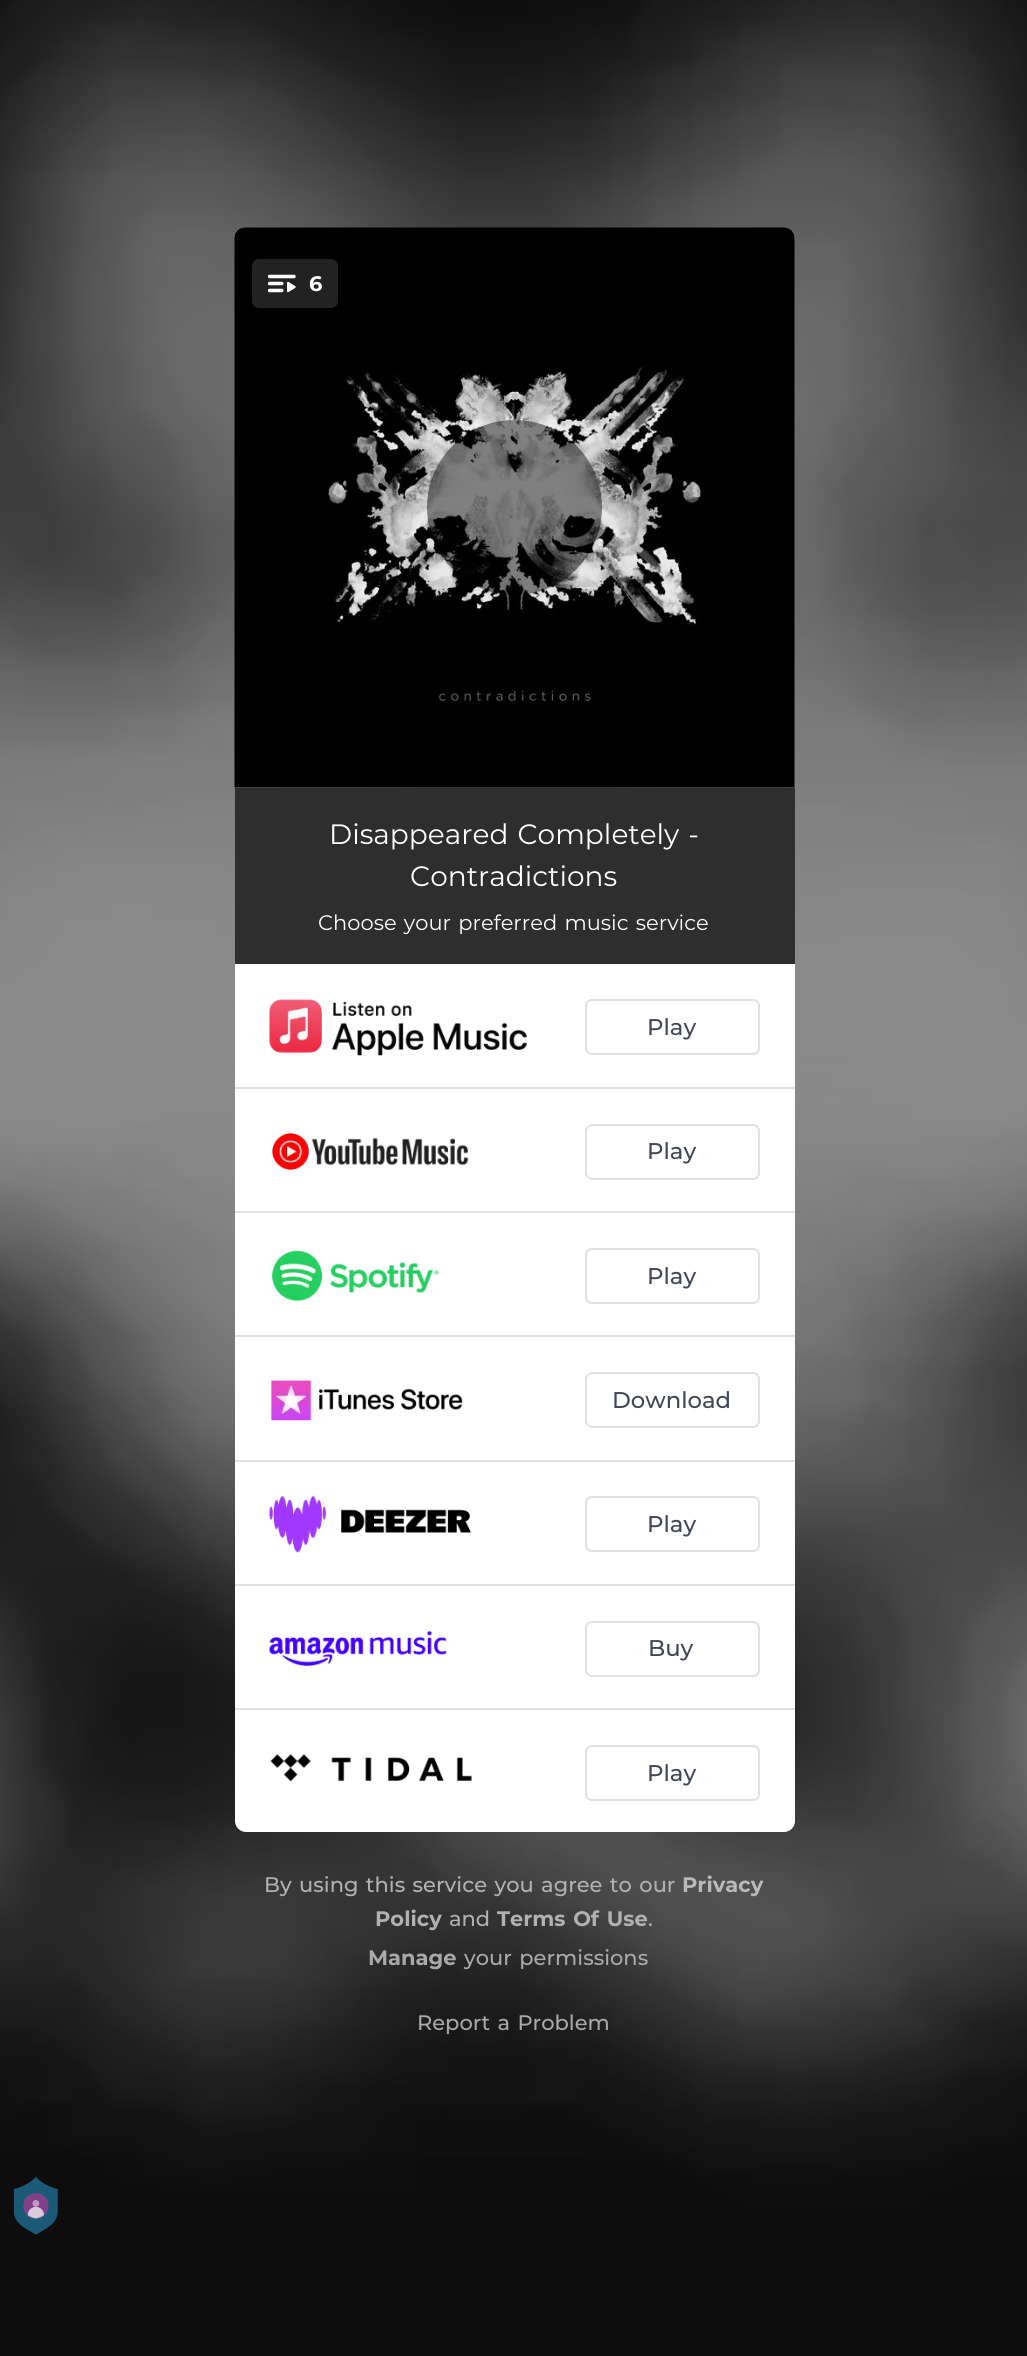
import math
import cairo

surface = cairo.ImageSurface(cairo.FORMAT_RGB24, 1027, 2356)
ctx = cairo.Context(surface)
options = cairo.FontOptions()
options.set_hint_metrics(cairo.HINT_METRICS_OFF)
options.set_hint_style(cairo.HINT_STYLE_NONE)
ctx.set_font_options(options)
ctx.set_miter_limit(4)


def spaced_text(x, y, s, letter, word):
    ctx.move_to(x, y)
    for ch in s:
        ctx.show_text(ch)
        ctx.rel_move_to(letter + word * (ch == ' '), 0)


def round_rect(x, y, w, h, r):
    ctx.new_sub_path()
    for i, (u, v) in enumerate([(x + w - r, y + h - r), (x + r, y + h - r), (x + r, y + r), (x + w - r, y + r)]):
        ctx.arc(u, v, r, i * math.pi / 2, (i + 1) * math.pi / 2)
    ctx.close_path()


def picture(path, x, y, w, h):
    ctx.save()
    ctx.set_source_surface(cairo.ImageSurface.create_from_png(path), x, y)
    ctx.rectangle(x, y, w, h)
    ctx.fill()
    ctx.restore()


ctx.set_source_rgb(1, 1, 1)
ctx.paint()
picture("img1.png", 0, 0, 1027, 2356)
picture("img2.png", 234, 227, 561, 561)
ctx.set_source_rgb(0.133, 0.133, 0.133)
round_rect(252, 259, 86, 49, 7)
ctx.fill()
picture("img3.png", 268, 274, 28, 19)
ctx.select_font_face("Montserrat", cairo.FONT_SLANT_NORMAL, cairo.FONT_WEIGHT_BOLD)
ctx.set_font_size(21)
ctx.set_source_rgb(1, 1, 1)
ctx.move_to(309, 291)
ctx.show_text("6")
ctx.set_source_rgba(0, 0, 0, 0.45)
ctx.new_path()
ctx.arc(514.5, 507.5, 87.5, 0, 2 * math.pi)
ctx.fill()
ctx.set_source_rgb(0.18, 0.18, 0.18)
ctx.rectangle(235, 788, 560, 176)
ctx.fill()
ctx.select_font_face("Montserrat")
ctx.set_font_size(28)
ctx.set_source_rgb(1, 1, 1)
spaced_text(329, 844, "Disappeared Completely -", 0, 1.75)
ctx.move_to(410, 886)
ctx.show_text("Contradictions")
ctx.set_font_size(21)
spaced_text(318, 930, "Choose your preferred music service", 0, 1.75)
ctx.new_path()
ctx.move_to(235, 964)
ctx.line_to(795, 964)
ctx.line_to(795, 1821)
ctx.curve_to(795, 1827, 790, 1832, 784, 1832)
ctx.line_to(246, 1832)
ctx.curve_to(240, 1832, 235, 1827, 235, 1821)
ctx.close_path()
ctx.fill()
ctx.set_source_rgb(0.882, 0.882, 0.894)
ctx.rectangle(235, 1087, 560, 2)
ctx.fill()
picture("img4.png", 269, 999, 258, 57)
round_rect(586, 1000, 173, 54, 6)
ctx.stroke()
ctx.select_font_face("Montserrat Medium")
ctx.set_font_size(22.75)
ctx.set_source_rgb(0.255, 0.278, 0.329)
ctx.move_to(647, 1035)
ctx.show_text("Play")
ctx.set_source_rgb(0.882, 0.882, 0.894)
ctx.rectangle(235, 1211, 560, 2)
ctx.fill()
picture("img5.png", 272, 1133, 197, 37)
round_rect(586, 1125, 173, 54, 6)
ctx.stroke()
ctx.set_source_rgb(0.255, 0.278, 0.329)
ctx.move_to(647, 1159)
ctx.show_text("Play")
ctx.set_source_rgb(0.882, 0.882, 0.894)
ctx.rectangle(235, 1335, 560, 2)
ctx.fill()
picture("img6.png", 271, 1250, 169, 52)
round_rect(586, 1249, 173, 54, 6)
ctx.stroke()
ctx.set_source_rgb(0.255, 0.278, 0.329)
ctx.move_to(647, 1284)
ctx.show_text("Play")
ctx.set_source_rgb(0.882, 0.882, 0.894)
ctx.rectangle(235, 1460, 560, 2)
ctx.fill()
picture("img7.png", 271, 1380, 192, 41)
round_rect(586, 1373, 173, 54, 6)
ctx.stroke()
ctx.set_source_rgb(0.255, 0.278, 0.329)
ctx.move_to(612, 1408)
ctx.show_text("Download")
ctx.set_source_rgb(0.882, 0.882, 0.894)
ctx.rectangle(235, 1584, 560, 2)
ctx.fill()
picture("img8.png", 269, 1496, 202, 57)
round_rect(586, 1497, 173, 54, 6)
ctx.stroke()
ctx.set_source_rgb(0.255, 0.278, 0.329)
ctx.move_to(647, 1532)
ctx.show_text("Play")
ctx.set_source_rgb(0.882, 0.882, 0.894)
ctx.rectangle(235, 1708, 560, 2)
ctx.fill()
picture("img9.png", 269, 1631, 178, 35)
round_rect(586, 1622, 173, 54, 6)
ctx.stroke()
ctx.set_source_rgb(0.255, 0.278, 0.329)
ctx.move_to(648, 1656)
ctx.show_text("Buy")
picture("img10.png", 270, 1754, 202, 28)
round_rect(586, 1746, 173, 54, 6)
ctx.set_source_rgb(0.882, 0.882, 0.894)
ctx.stroke()
ctx.set_source_rgb(0.255, 0.278, 0.329)
ctx.move_to(647, 1781)
ctx.show_text("Play")
ctx.set_font_size(21)
ctx.set_source_rgb(0.698, 0.694, 0.698)
spaced_text(264, 1892, "By using this service you agree to our", 0, 1.75)
ctx.select_font_face("Montserrat", cairo.FONT_SLANT_NORMAL, cairo.FONT_WEIGHT_BOLD)
ctx.set_source_rgb(0.725, 0.725, 0.725)
ctx.move_to(682, 1892)
ctx.show_text("Privacy")
ctx.set_source_rgb(0.698, 0.694, 0.698)
ctx.move_to(375, 1926)
ctx.show_text("Policy")
ctx.select_font_face("Montserrat Medium")
ctx.move_to(449, 1926)
ctx.show_text("and")
ctx.select_font_face("Montserrat", cairo.FONT_SLANT_NORMAL, cairo.FONT_WEIGHT_BOLD)
spaced_text(497, 1926, "Terms Of Use", 0, 1.75)
ctx.select_font_face("Montserrat Medium")
ctx.move_to(648, 1926)
ctx.show_text(".")
ctx.select_font_face("Montserrat", cairo.FONT_SLANT_NORMAL, cairo.FONT_WEIGHT_BOLD)
ctx.set_source_rgb(0.663, 0.663, 0.663)
ctx.move_to(368, 1965)
ctx.show_text("Manage")
ctx.select_font_face("Montserrat Medium")
spaced_text(464, 1965, "your permissions", 0, 1.75)
spaced_text(417, 2030, "Report a Problem", 0, 1.75)
picture("img11.png", 14, 2177, 44, 58)
surface.write_to_png("page.png")
